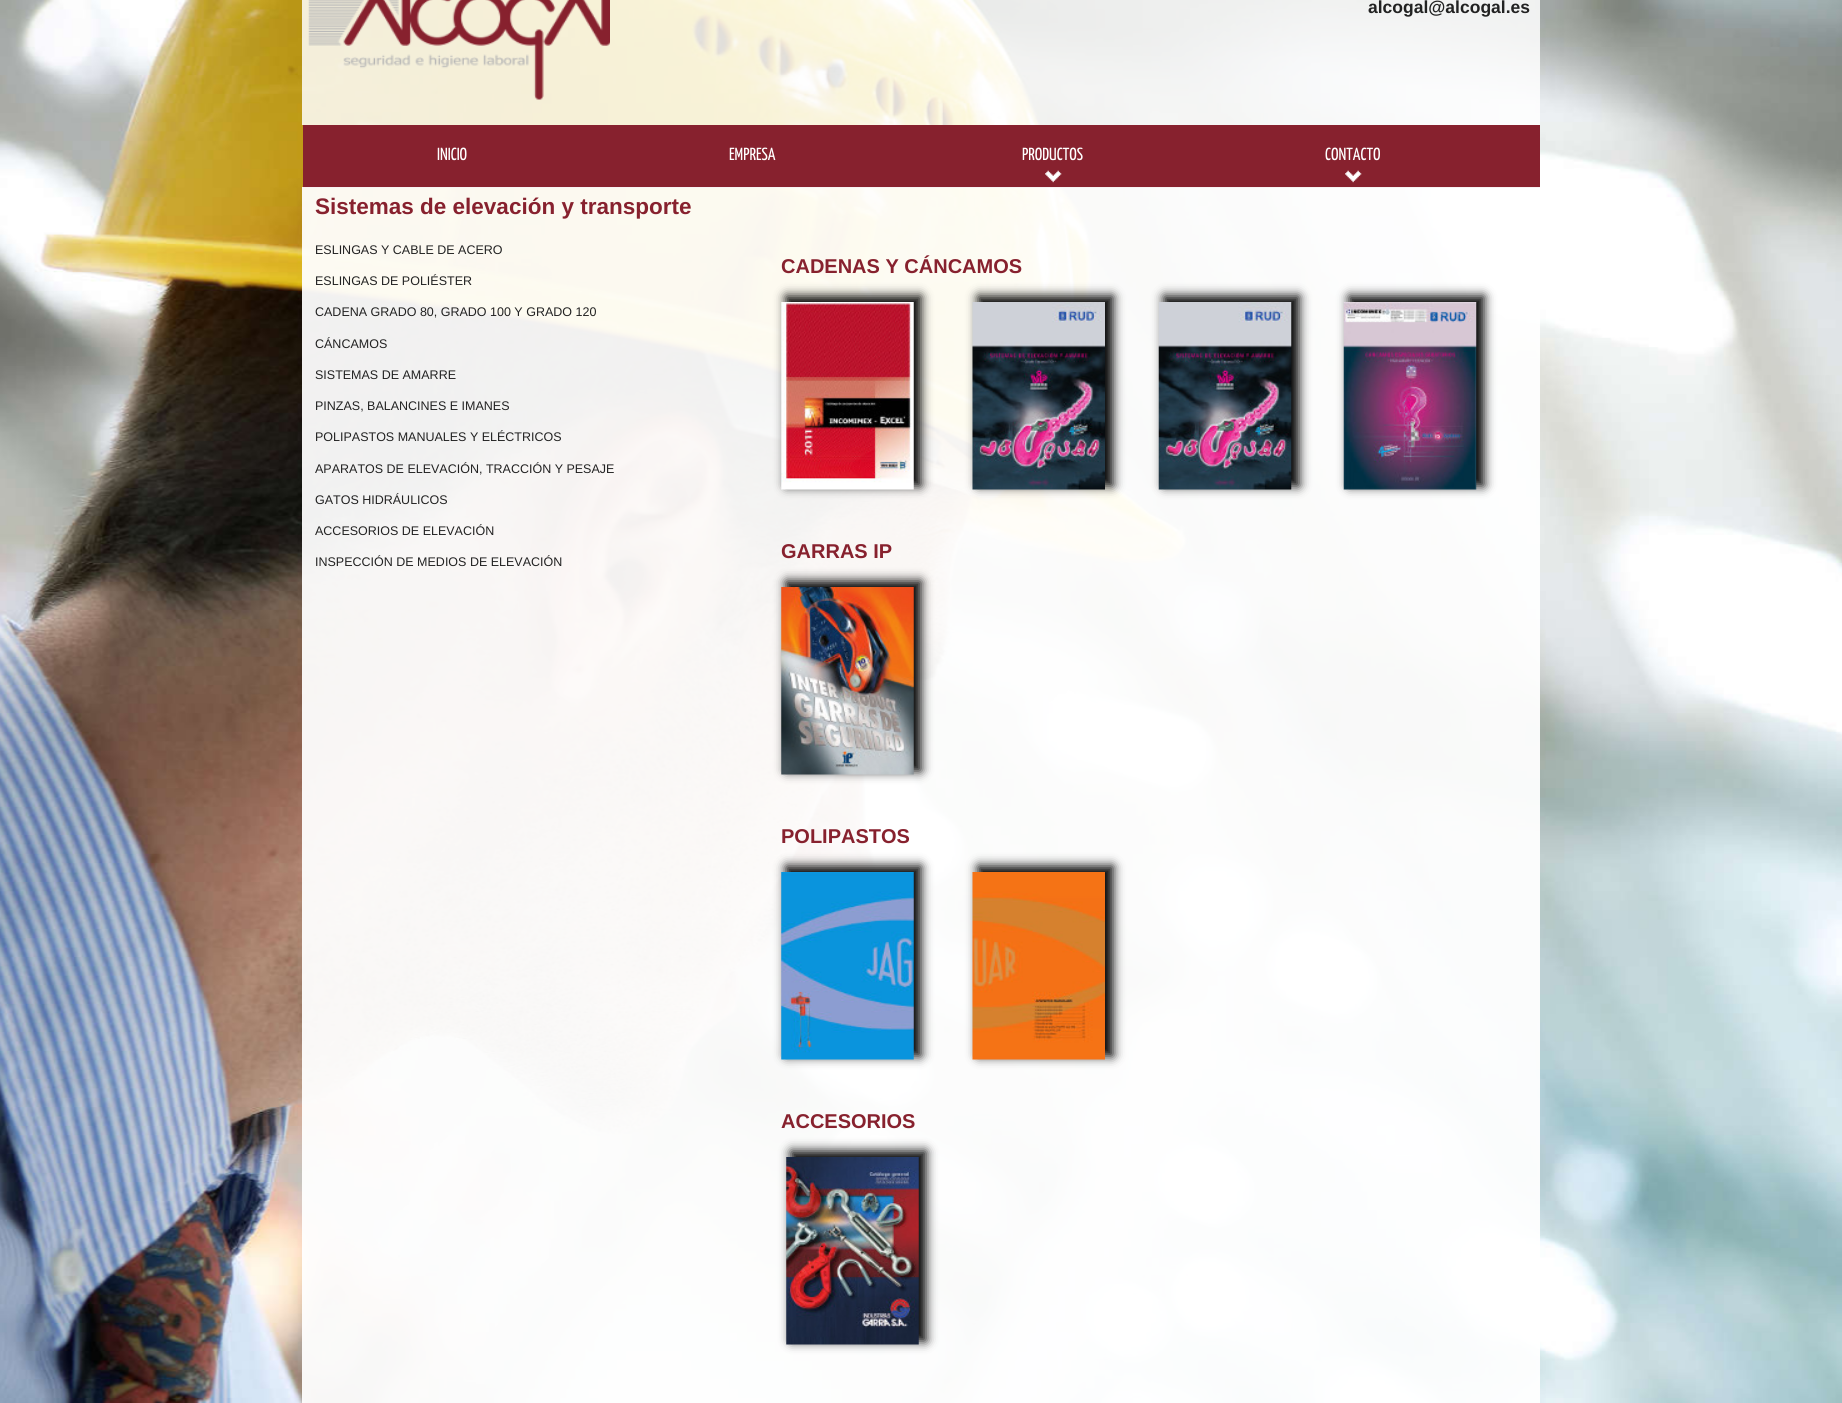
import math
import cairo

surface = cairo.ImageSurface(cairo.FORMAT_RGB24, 1842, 1403)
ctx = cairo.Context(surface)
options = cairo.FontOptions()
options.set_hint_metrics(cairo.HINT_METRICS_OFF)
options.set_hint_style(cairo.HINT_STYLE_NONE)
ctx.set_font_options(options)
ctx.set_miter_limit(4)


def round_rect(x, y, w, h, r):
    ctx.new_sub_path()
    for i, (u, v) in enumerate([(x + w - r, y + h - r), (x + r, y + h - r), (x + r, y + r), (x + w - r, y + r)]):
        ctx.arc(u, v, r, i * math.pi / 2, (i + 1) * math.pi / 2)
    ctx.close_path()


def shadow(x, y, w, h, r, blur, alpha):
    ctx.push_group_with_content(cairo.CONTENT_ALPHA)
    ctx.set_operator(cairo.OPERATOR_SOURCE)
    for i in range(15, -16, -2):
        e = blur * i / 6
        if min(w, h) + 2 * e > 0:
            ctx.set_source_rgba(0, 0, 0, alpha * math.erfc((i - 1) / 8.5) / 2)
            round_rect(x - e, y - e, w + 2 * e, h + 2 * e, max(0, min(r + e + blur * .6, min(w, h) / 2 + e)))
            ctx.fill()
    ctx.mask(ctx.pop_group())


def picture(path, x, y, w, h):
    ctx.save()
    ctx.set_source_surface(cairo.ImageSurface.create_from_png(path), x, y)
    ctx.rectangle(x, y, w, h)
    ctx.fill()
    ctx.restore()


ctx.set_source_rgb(1, 1, 1)
ctx.paint()
picture("img1.png", 0, 0, 1842, 1403)
ctx.set_source_rgba(1, 1, 1, 0.84)
ctx.rectangle(302, 0, 1238, 125)
ctx.fill()
picture("img2.png", 308, 0, 302, 100)
ctx.select_font_face("Liberation Sans", cairo.FONT_SLANT_NORMAL, cairo.FONT_WEIGHT_BOLD)
ctx.set_font_size(17.5)
ctx.set_source_rgb(0.133, 0.133, 0.133)
ctx.move_to(1368, 13)
ctx.show_text("alcogal@alcogal.es")
ctx.set_source_rgb(0.529, 0.129, 0.18)
ctx.rectangle(303, 125, 1237, 63)
ctx.fill()
ctx.select_font_face("Yanone Kaffeesatz")
ctx.set_source_rgb(1, 1, 1)
ctx.move_to(437, 160)
ctx.show_text("INICIO")
ctx.move_to(729, 160)
ctx.show_text("EMPRESA")
picture("img3.png", 1045, 170, 17, 13)
ctx.move_to(1022, 160)
ctx.show_text("PRODUCTOS")
picture("img4.png", 1345, 170, 17, 13)
ctx.move_to(1325, 160)
ctx.show_text("CONTACTO")
ctx.set_source_rgba(1, 1, 1, 0.94)
ctx.rectangle(302, 187, 1238, 1216)
ctx.fill()
ctx.select_font_face("Liberation Sans", cairo.FONT_SLANT_NORMAL, cairo.FONT_WEIGHT_BOLD)
ctx.set_font_size(22.5)
ctx.set_source_rgb(0.529, 0.129, 0.18)
ctx.move_to(315, 214)
ctx.show_text("Sistemas de elevación y transporte")
ctx.select_font_face("Liberation Sans")
ctx.set_font_size(12.5)
ctx.set_source_rgb(0.133, 0.133, 0.133)
ctx.move_to(315, 254)
ctx.show_text("ESLINGAS Y CABLE DE ACERO")
ctx.move_to(315, 285)
ctx.show_text("ESLINGAS DE POLIÉSTER")
ctx.select_font_face("Liberation Sans", cairo.FONT_SLANT_NORMAL, cairo.FONT_WEIGHT_BOLD)
ctx.set_font_size(20)
ctx.set_source_rgb(0.529, 0.129, 0.18)
ctx.move_to(781, 273)
ctx.show_text("CADENAS Y CÁNCAMOS")
ctx.set_source_rgb(0, 0, 0)
shadow(786, 296, 135, 190, 0, 5.5, 1)
picture("img5.png", 781, 302, 133, 188)
shadow(978, 296, 135, 190, 0, 5.5, 1)
picture("img6.png", 972, 302, 133, 188)
shadow(1164, 296, 135, 190, 0, 5.5, 1)
picture("img7.png", 1158, 302, 134, 188)
shadow(1349, 296, 135, 190, 0, 5.5, 1)
picture("img8.png", 1343, 302, 134, 188)
ctx.set_source_rgb(0.529, 0.129, 0.18)
ctx.move_to(781, 558)
ctx.show_text("GARRAS IP")
ctx.set_source_rgb(0, 0, 0)
shadow(786, 581, 135, 190, 0, 5.5, 1)
picture("img9.png", 781, 587, 133, 188)
ctx.set_source_rgb(0.529, 0.129, 0.18)
ctx.move_to(781, 843)
ctx.show_text("POLIPASTOS")
ctx.set_source_rgb(0, 0, 0)
shadow(786, 866, 135, 190, 0, 5.5, 1)
picture("img10.png", 781, 872, 133, 188)
shadow(978, 866, 135, 190, 0, 5.5, 1)
picture("img11.png", 972, 872, 133, 188)
ctx.set_source_rgb(0.529, 0.129, 0.18)
ctx.move_to(781, 1128)
ctx.show_text("ACCESORIOS")
ctx.set_source_rgb(0, 0, 0)
shadow(791, 1151, 135, 190, 0, 5.5, 1)
picture("img12.png", 786, 1157, 133, 188)
ctx.select_font_face("Liberation Sans")
ctx.set_font_size(12.5)
ctx.set_source_rgb(0.133, 0.133, 0.133)
ctx.move_to(315, 316)
ctx.show_text("CADENA GRADO 80, GRADO 100 Y GRADO 120")
ctx.move_to(315, 348)
ctx.show_text("CÁNCAMOS")
ctx.move_to(315, 379)
ctx.show_text("SISTEMAS DE AMARRE")
ctx.move_to(315, 410)
ctx.show_text("PINZAS, BALANCINES E IMANES")
ctx.move_to(315, 441)
ctx.show_text("POLIPASTOS MANUALES Y ELÉCTRICOS")
ctx.move_to(315, 473)
ctx.show_text("APARATOS DE ELEVACIÓN, TRACCIÓN Y PESAJE")
ctx.move_to(315, 504)
ctx.show_text("GATOS HIDRÁULICOS")
ctx.move_to(315, 535)
ctx.show_text("ACCESORIOS DE ELEVACIÓN")
ctx.move_to(315, 566)
ctx.show_text("INSPECCIÓN DE MEDIOS DE ELEVACIÓN")
surface.write_to_png("page.png")
